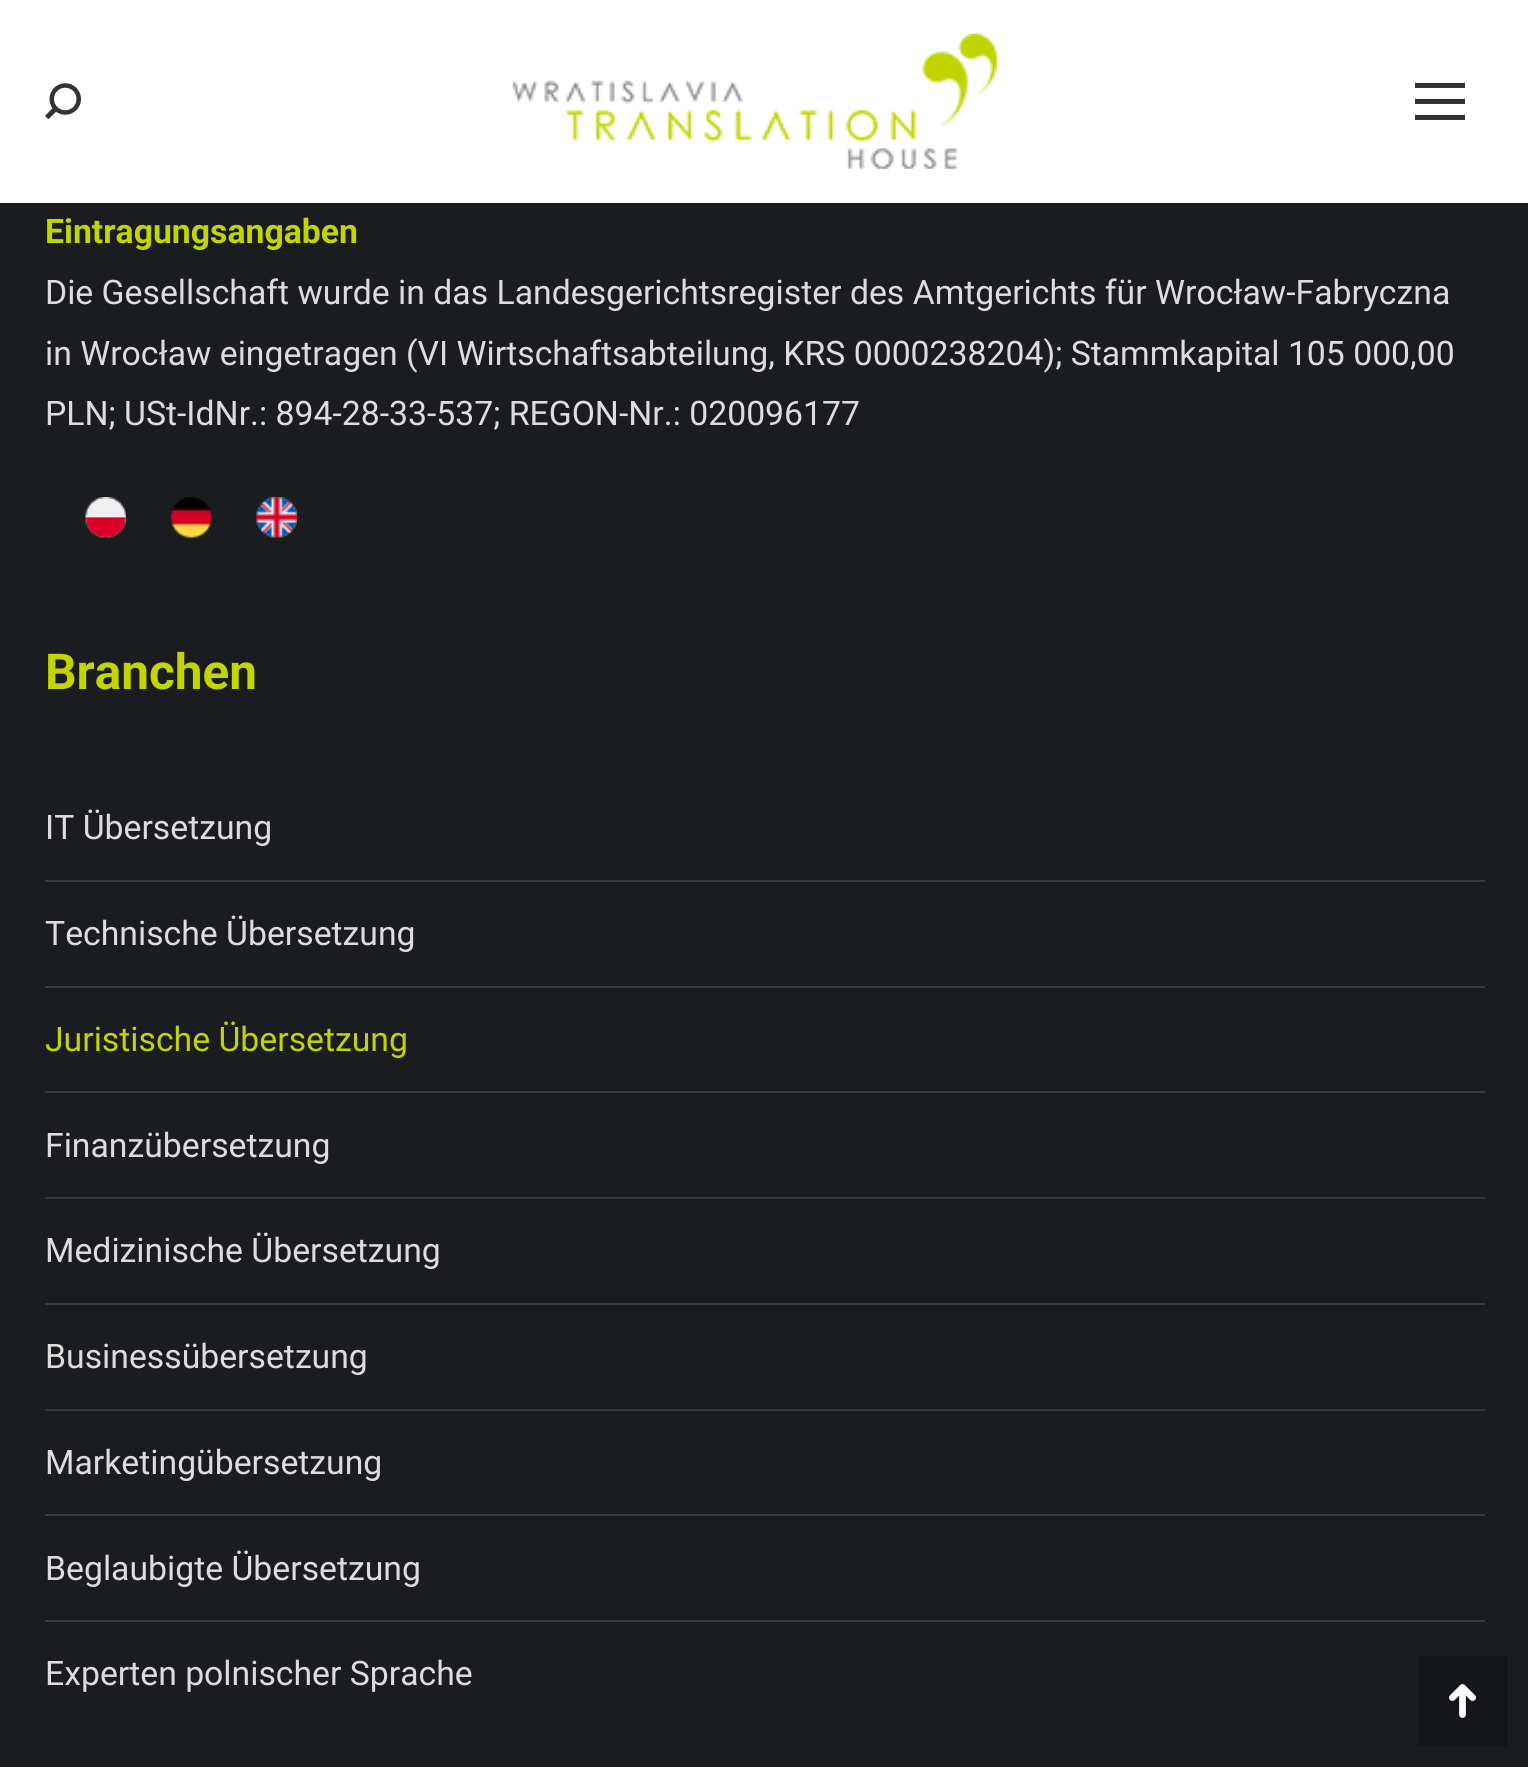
import math
import cairo

surface = cairo.ImageSurface(cairo.FORMAT_RGB24, 1528, 1767)
ctx = cairo.Context(surface)
options = cairo.FontOptions()
options.set_hint_metrics(cairo.HINT_METRICS_OFF)
options.set_hint_style(cairo.HINT_STYLE_NONE)
ctx.set_font_options(options)
ctx.set_miter_limit(4)


def picture(path, x, y, w, h):
    ctx.save()
    ctx.set_source_surface(cairo.ImageSurface.create_from_png(path), x, y)
    ctx.rectangle(x, y, w, h)
    ctx.fill()
    ctx.restore()


ctx.set_source_rgb(0.102, 0.11, 0.125)
ctx.paint()
ctx.set_source_rgb(1, 1, 1)
ctx.rectangle(0, 0, 1528, 203)
ctx.fill()
picture("img1.png", 45, 83, 36, 37)
picture("img2.png", 512, 33, 485, 136)
ctx.set_source_rgb(0.2, 0.2, 0.2)
ctx.rectangle(1415, 83, 50, 5)
ctx.fill()
ctx.rectangle(1415, 99, 50, 5)
ctx.fill()
ctx.rectangle(1415, 115, 50, 5)
ctx.fill()
ctx.select_font_face("Roboto", cairo.FONT_SLANT_NORMAL, cairo.FONT_WEIGHT_BOLD)
ctx.set_font_size(33.75)
ctx.set_source_rgb(0.761, 0.835, 0.004)
ctx.move_to(45, 243)
ctx.show_text("Eintragungsangaben")
ctx.select_font_face("Roboto")
ctx.set_source_rgb(0.867, 0.867, 0.867)
ctx.move_to(45, 304)
ctx.show_text("Die Gesellschaft wurde in das Landesgerichtsregister des Amtgerichts für Wrocław-Fabryczna")
ctx.move_to(45, 365)
ctx.show_text("in Wrocław eingetragen (VI Wirtschaftsabteilung, KRS 0000238204); Stammkapital 105 000,00")
ctx.move_to(45, 425)
ctx.show_text("PLN; USt-IdNr.: 894-28-33-537; REGON-Nr.: 020096177")
picture("img3.png", 85, 497, 41, 41)
picture("img4.png", 171, 497, 41, 41)
picture("img5.png", 256, 497, 41, 41)
ctx.select_font_face("Roboto", cairo.FONT_SLANT_NORMAL, cairo.FONT_WEIGHT_BOLD)
ctx.set_font_size(49.5)
ctx.set_source_rgb(0.761, 0.835, 0.004)
ctx.move_to(45, 689)
ctx.show_text("Branchen")
ctx.select_font_face("Roboto")
ctx.set_font_size(33.75)
ctx.set_source_rgb(0.867, 0.867, 0.867)
ctx.move_to(45, 839)
ctx.show_text("IT Übersetzung")
ctx.set_source_rgb(0.216, 0.224, 0.235)
ctx.rectangle(45, 880, 1440, 2)
ctx.fill()
ctx.set_source_rgb(0.867, 0.867, 0.867)
ctx.move_to(45, 945)
ctx.show_text("Technische Übersetzung")
ctx.set_source_rgb(0.216, 0.224, 0.235)
ctx.rectangle(45, 986, 1440, 2)
ctx.fill()
ctx.set_source_rgb(0.761, 0.835, 0.004)
ctx.move_to(45, 1051)
ctx.show_text("Juristische Übersetzung")
ctx.set_source_rgb(0.216, 0.224, 0.235)
ctx.rectangle(45, 1091, 1440, 2)
ctx.fill()
ctx.set_source_rgb(0.867, 0.867, 0.867)
ctx.move_to(45, 1157)
ctx.show_text("Finanzübersetzung")
ctx.set_source_rgb(0.216, 0.224, 0.235)
ctx.rectangle(45, 1197, 1440, 2)
ctx.fill()
ctx.set_source_rgb(0.867, 0.867, 0.867)
ctx.move_to(45, 1262)
ctx.show_text("Medizinische Übersetzung")
ctx.set_source_rgb(0.216, 0.224, 0.235)
ctx.rectangle(45, 1303, 1440, 2)
ctx.fill()
ctx.set_source_rgb(0.867, 0.867, 0.867)
ctx.move_to(45, 1368)
ctx.show_text("Businessübersetzung")
ctx.set_source_rgb(0.216, 0.224, 0.235)
ctx.rectangle(45, 1409, 1440, 2)
ctx.fill()
ctx.set_source_rgb(0.867, 0.867, 0.867)
ctx.move_to(45, 1474)
ctx.show_text("Marketingübersetzung")
ctx.set_source_rgb(0.216, 0.224, 0.235)
ctx.rectangle(45, 1514, 1440, 2)
ctx.fill()
ctx.set_source_rgb(0.867, 0.867, 0.867)
ctx.move_to(45, 1580)
ctx.show_text("Beglaubigte Übersetzung")
ctx.set_source_rgb(0.216, 0.224, 0.235)
ctx.rectangle(45, 1620, 1440, 2)
ctx.fill()
ctx.set_source_rgb(0.867, 0.867, 0.867)
ctx.move_to(45, 1685)
ctx.show_text("Experten polnischer Sprache")
ctx.set_source_rgb(0.082, 0.086, 0.102)
ctx.rectangle(1418, 1656, 90, 90)
ctx.fill()
picture("img6.png", 1449, 1684, 27, 34)
surface.write_to_png("page.png")
